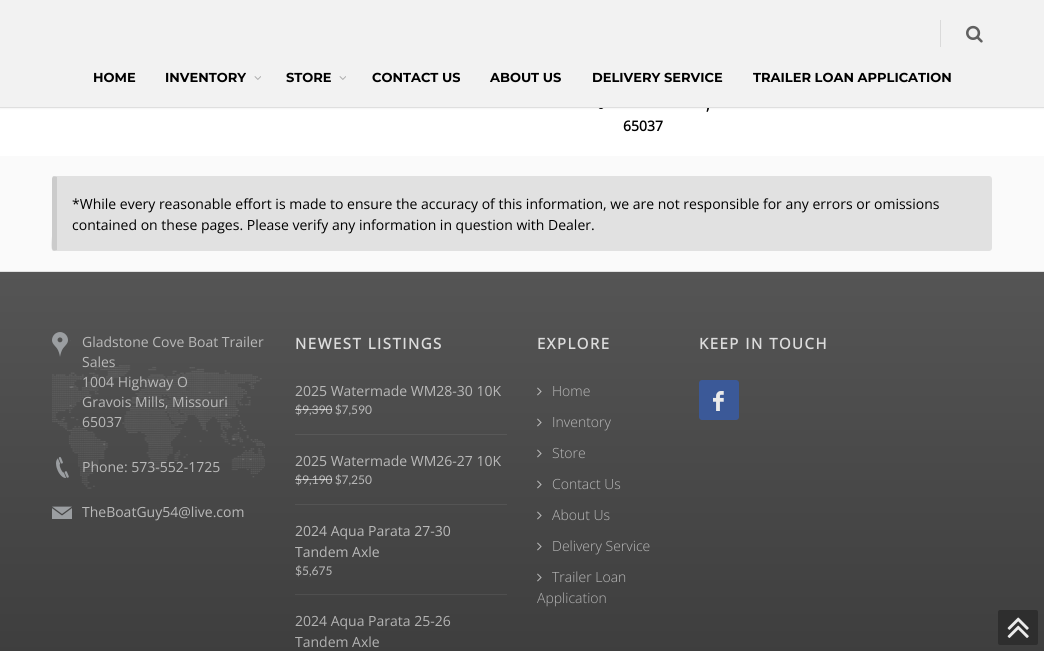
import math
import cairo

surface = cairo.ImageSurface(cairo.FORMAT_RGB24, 1044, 651)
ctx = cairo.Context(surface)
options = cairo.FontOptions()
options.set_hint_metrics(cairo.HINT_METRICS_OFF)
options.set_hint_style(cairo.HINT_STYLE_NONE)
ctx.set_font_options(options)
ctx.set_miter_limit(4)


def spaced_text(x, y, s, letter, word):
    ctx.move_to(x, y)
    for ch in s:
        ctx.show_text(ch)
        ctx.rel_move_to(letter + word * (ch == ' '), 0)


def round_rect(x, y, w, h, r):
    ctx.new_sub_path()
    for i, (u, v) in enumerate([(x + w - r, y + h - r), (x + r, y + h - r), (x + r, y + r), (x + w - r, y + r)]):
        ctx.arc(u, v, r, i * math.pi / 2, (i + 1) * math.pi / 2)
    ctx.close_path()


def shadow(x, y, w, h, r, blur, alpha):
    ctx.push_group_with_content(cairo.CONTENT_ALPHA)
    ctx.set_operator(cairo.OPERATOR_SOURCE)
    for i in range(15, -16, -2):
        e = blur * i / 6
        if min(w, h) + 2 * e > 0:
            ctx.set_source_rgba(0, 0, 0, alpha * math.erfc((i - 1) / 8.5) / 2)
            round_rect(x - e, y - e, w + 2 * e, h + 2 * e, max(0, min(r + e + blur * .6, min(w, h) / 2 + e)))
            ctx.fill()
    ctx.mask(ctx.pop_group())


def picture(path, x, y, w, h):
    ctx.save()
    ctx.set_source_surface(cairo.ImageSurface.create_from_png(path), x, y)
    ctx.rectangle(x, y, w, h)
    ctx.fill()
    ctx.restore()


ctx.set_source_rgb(1, 1, 1)
ctx.paint()
picture("img3.png", 598, 108, 6, 1)
ctx.set_source_rgb(0, 0, 0)
shadow(0, 0, 1044, 108, 0, 1, 0.1)
ctx.set_source_rgb(0.949, 0.949, 0.949)
ctx.rectangle(0, 0, 1044, 107)
ctx.fill()
ctx.set_source_rgb(0.875, 0.875, 0.875)
ctx.rectangle(0, 107, 1044, 1)
ctx.fill()
ctx.set_source_rgb(0.855, 0.855, 0.855)
ctx.rectangle(940, 20, 1, 27)
ctx.fill()
picture("img1.png", 966, 25, 17, 18)
ctx.select_font_face("Montserrat Thin")
ctx.set_font_size(13)
ctx.set_source_rgb(0, 0, 0)
ctx.move_to(93, 82)
ctx.show_text("HOME")
ctx.move_to(165, 82)
ctx.show_text("INVENTORY")
picture("img2.png", 254, 76, 7, 4)
ctx.move_to(286, 82)
ctx.show_text("STORE")
picture("img2.png", 339, 76, 7, 4)
ctx.move_to(372, 82)
ctx.show_text("CONTACT US")
ctx.move_to(490, 82)
ctx.show_text("ABOUT US")
ctx.move_to(592, 82)
ctx.show_text("DELIVERY SERVICE")
ctx.move_to(753, 82)
ctx.show_text("TRAILER LOAN APPLICATION")
ctx.select_font_face("Open Sans", cairo.FONT_SLANT_NORMAL, cairo.FONT_WEIGHT_BOLD)
ctx.set_font_size(14)
ctx.move_to(706, 110)
ctx.show_text(",")
ctx.move_to(623, 131)
ctx.show_text("65037")
ctx.set_source_rgb(0.98, 0.98, 0.98)
ctx.rectangle(0, 156, 1044, 115)
ctx.fill()
ctx.set_source_rgb(0.882, 0.882, 0.882)
ctx.rectangle(0, 271, 1044, 1)
ctx.fill()
round_rect(52, 176, 940, 75, 3)
ctx.fill()
ctx.set_source_rgba(0, 0, 0, 0.1)
ctx.new_path()
ctx.move_to(57, 177)
ctx.line_to(53, 176)
ctx.line_to(52, 178)
ctx.line_to(52, 236)
ctx.curve_to(52, 238, 50, 249, 53, 251)
ctx.line_to(57, 250)
ctx.close_path()
ctx.fill()
ctx.select_font_face("Open Sans")
ctx.set_source_rgb(0, 0, 0)
ctx.move_to(72, 209)
ctx.show_text("*While every reasonable effort is made to ensure the accuracy of this information, we are not responsible for any errors or omissions")
ctx.move_to(72, 230)
ctx.show_text("contained on these pages. Please verify any information in question with Dealer.")
gradient = cairo.LinearGradient(522, 272, 522, 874)
gradient.add_color_stop_rgba(0, 0.333, 0.333, 0.333, 1)
gradient.add_color_stop_rgba(1, 0.192, 0.192, 0.192, 1)
ctx.set_source(gradient)
ctx.rectangle(0, 272, 1044, 379)
ctx.fill()
picture("img4.png", 52, 365, 213, 124)
picture("img5.png", 52, 332, 19, 25)
ctx.set_source_rgb(0.725, 0.725, 0.725)
ctx.move_to(82, 347)
ctx.show_text("Gladstone Cove Boat Trailer")
ctx.move_to(82, 367)
ctx.show_text("Sales")
ctx.move_to(82, 387)
ctx.show_text("1004 Highway O")
ctx.move_to(82, 407)
ctx.show_text("Gravois Mills, Missouri")
ctx.move_to(82, 427)
ctx.show_text("65037")
picture("img6.png", 56, 457, 13, 21)
ctx.move_to(82, 472)
ctx.show_text("Phone: 573-552-1725")
picture("img7.png", 52, 506, 20, 13)
ctx.move_to(82, 517)
ctx.show_text("TheBoatGuy54@live.com")
ctx.select_font_face("Open Sans", cairo.FONT_SLANT_NORMAL, cairo.FONT_WEIGHT_BOLD)
ctx.set_font_size(15)
ctx.set_source_rgb(0.863, 0.863, 0.863)
spaced_text(295, 349, "NEWEST LISTINGS", 1.5, 0)
ctx.set_source_rgb(0.345, 0.345, 0.345)
ctx.rectangle(295, 434, 212, 1)
ctx.fill()
ctx.select_font_face("Open Sans")
ctx.set_font_size(14)
ctx.set_source_rgb(0.725, 0.725, 0.725)
ctx.move_to(295, 396)
ctx.show_text("2025 Watermade WM28-30 10K")
ctx.select_font_face("Lato")
ctx.set_font_size(12)
ctx.move_to(295, 414)
ctx.show_text("$9,390 $7,590")
ctx.set_source_rgba(1, 1, 1, 0.6)
ctx.rectangle(295, 409, 37, 1)
ctx.fill()
ctx.set_source_rgb(0.329, 0.329, 0.329)
ctx.rectangle(295, 504, 212, 1)
ctx.fill()
ctx.select_font_face("Open Sans")
ctx.set_font_size(14)
ctx.set_source_rgb(0.725, 0.725, 0.725)
ctx.move_to(295, 466)
ctx.show_text("2025 Watermade WM26-27 10K")
ctx.select_font_face("Lato")
ctx.set_font_size(12)
ctx.move_to(295, 484)
ctx.show_text("$9,190 $7,250")
ctx.set_source_rgba(1, 1, 1, 0.6)
ctx.rectangle(295, 479, 37, 1)
ctx.fill()
ctx.set_source_rgb(0.31, 0.31, 0.31)
ctx.rectangle(295, 594, 212, 1)
ctx.fill()
ctx.select_font_face("Open Sans")
ctx.set_font_size(14)
ctx.set_source_rgb(0.725, 0.725, 0.725)
ctx.move_to(295, 536)
ctx.show_text("2024 Aqua Parata 27-30")
ctx.move_to(295, 557)
ctx.show_text("Tandem Axle")
ctx.select_font_face("Lato")
ctx.set_font_size(12)
ctx.move_to(295, 575)
ctx.show_text("$5,675")
ctx.select_font_face("Open Sans")
ctx.set_font_size(14)
ctx.set_source_rgb(0.702, 0.702, 0.702)
ctx.move_to(295, 626)
ctx.show_text("2024 Aqua Parata 25-26")
ctx.move_to(295, 647)
ctx.show_text("Tandem Axle")
ctx.select_font_face("Open Sans", cairo.FONT_SLANT_NORMAL, cairo.FONT_WEIGHT_BOLD)
ctx.set_font_size(15)
ctx.set_source_rgb(0.863, 0.863, 0.863)
spaced_text(537, 349, "EXPLORE", 1.5, 0)
picture("img8.png", 537, 387, 5, 9)
ctx.select_font_face("Open Sans Light")
ctx.set_font_size(14)
ctx.set_source_rgb(0.725, 0.725, 0.725)
ctx.move_to(552, 396)
ctx.show_text("Home")
picture("img9.png", 537, 418, 5, 9)
ctx.move_to(552, 427)
ctx.show_text("Inventory")
picture("img10.png", 537, 449, 5, 9)
ctx.move_to(552, 458)
ctx.show_text("Store")
picture("img11.png", 537, 480, 5, 9)
ctx.move_to(552, 489)
ctx.show_text("Contact Us")
picture("img12.png", 537, 511, 5, 9)
ctx.move_to(552, 520)
ctx.show_text("About Us")
picture("img13.png", 537, 542, 5, 9)
ctx.move_to(552, 551)
ctx.show_text("Delivery Service")
picture("img14.png", 537, 573, 5, 9)
ctx.move_to(552, 582)
ctx.show_text("Trailer Loan")
ctx.set_source_rgb(0.702, 0.702, 0.702)
ctx.move_to(537, 603)
ctx.show_text("Application")
ctx.select_font_face("Open Sans", cairo.FONT_SLANT_NORMAL, cairo.FONT_WEIGHT_BOLD)
ctx.set_font_size(15)
ctx.set_source_rgb(0.863, 0.863, 0.863)
spaced_text(699, 349, "KEEP IN TOUCH", 1.5, 0)
ctx.set_source_rgb(0.231, 0.349, 0.596)
round_rect(699, 380, 40, 40, 3)
ctx.fill()
picture("img15.png", 713, 391, 11, 20)
ctx.set_source_rgb(0.18, 0.18, 0.18)
round_rect(998, 610, 40, 35, 2)
ctx.fill()
picture("img16.png", 1007, 617, 22, 21)
surface.write_to_png("page.png")
